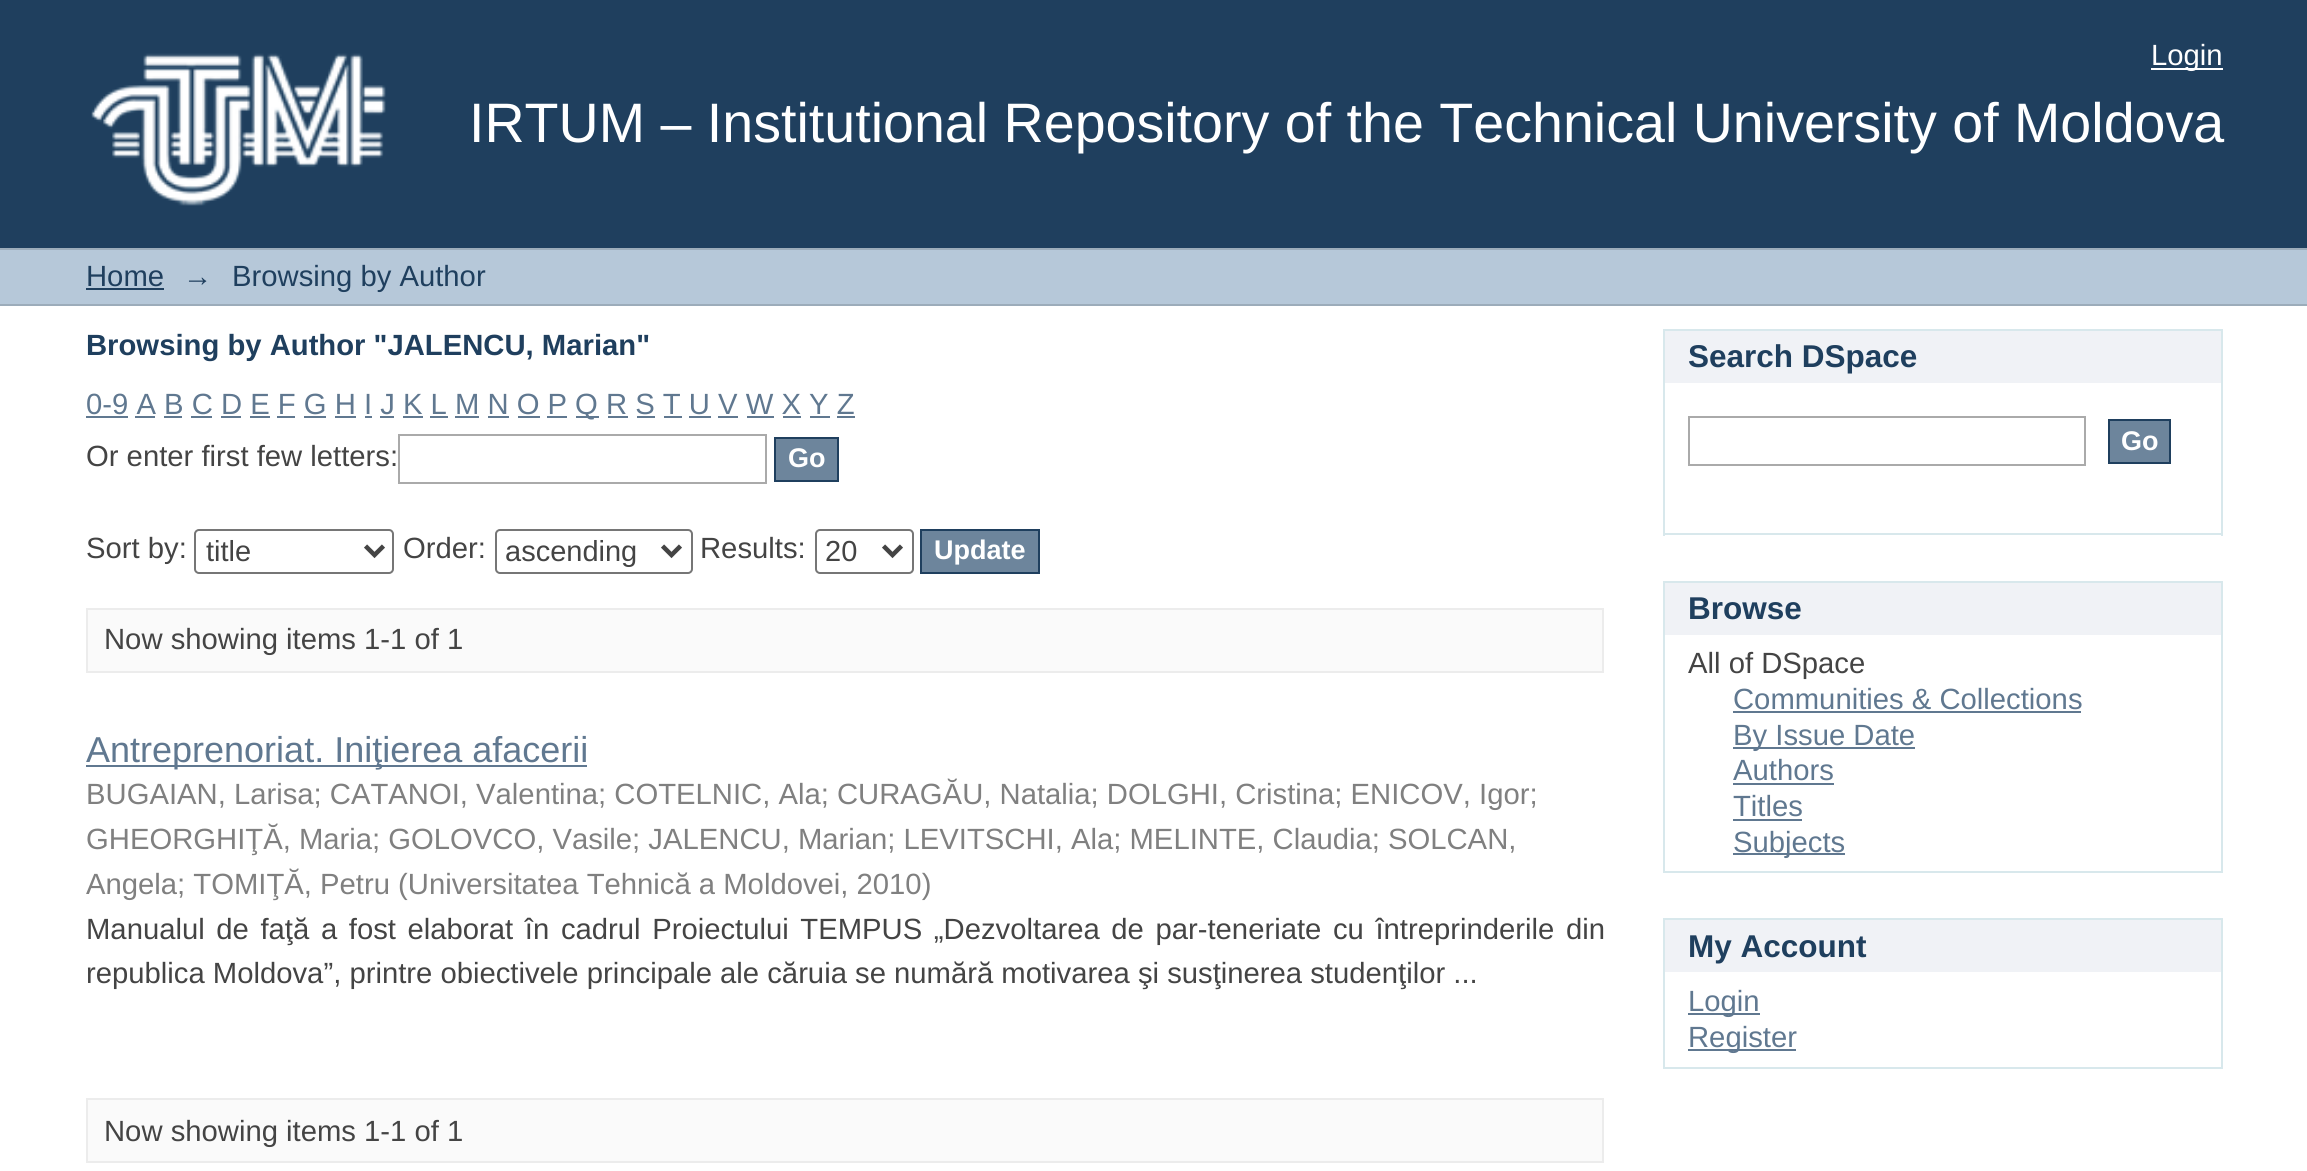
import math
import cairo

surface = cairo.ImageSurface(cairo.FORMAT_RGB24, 2307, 1171)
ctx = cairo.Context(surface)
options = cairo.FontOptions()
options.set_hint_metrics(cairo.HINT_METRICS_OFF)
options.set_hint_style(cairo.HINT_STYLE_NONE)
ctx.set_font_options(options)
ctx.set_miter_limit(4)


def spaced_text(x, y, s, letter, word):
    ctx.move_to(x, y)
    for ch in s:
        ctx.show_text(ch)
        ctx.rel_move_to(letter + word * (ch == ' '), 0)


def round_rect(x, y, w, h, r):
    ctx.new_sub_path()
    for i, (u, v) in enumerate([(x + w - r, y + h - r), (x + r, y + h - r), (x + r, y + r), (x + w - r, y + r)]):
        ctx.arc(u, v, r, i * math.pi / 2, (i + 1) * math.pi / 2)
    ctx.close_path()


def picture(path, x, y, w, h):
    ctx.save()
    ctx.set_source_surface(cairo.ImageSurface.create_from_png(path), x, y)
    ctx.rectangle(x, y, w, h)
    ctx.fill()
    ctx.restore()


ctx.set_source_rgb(1, 1, 1)
ctx.paint()
ctx.set_source_rgb(0.122, 0.247, 0.369)
ctx.rectangle(0, 0, 2307, 248)
ctx.fill()
ctx.set_source_rgb(1, 1, 1)
ctx.rectangle(2151, 68, 72, 2)
ctx.fill()
ctx.select_font_face("Liberation Sans")
ctx.set_font_size(29.25)
ctx.move_to(2151, 65)
ctx.show_text("Login")
picture("img1.png", 91, 53, 295, 153)
ctx.set_font_size(55.6)
ctx.move_to(469, 142)
ctx.show_text("IRTUM – Institutional Repository of the Technical University of Moldova")
ctx.set_source_rgb(0.714, 0.784, 0.851)
ctx.rectangle(0, 250, 2307, 54)
ctx.fill()
ctx.set_source_rgb(0.612, 0.675, 0.729)
ctx.rectangle(0, 248, 2307, 2)
ctx.fill()
ctx.rectangle(0, 304, 2307, 2)
ctx.fill()
ctx.set_font_size(29.25)
ctx.set_source_rgb(0.122, 0.247, 0.369)
ctx.move_to(86, 286)
ctx.show_text("Home")
ctx.rectangle(86, 288, 78, 2)
ctx.fill()
ctx.move_to(183, 286)
ctx.show_text("→")
ctx.move_to(232, 286)
ctx.show_text("Browsing by Author")
ctx.select_font_face("Liberation Sans", cairo.FONT_SLANT_NORMAL, cairo.FONT_WEIGHT_BOLD)
ctx.move_to(86, 355)
ctx.show_text("Browsing by Author \"JALENCU, Marian\"")
ctx.select_font_face("Liberation Sans")
ctx.set_source_rgb(0.376, 0.471, 0.565)
ctx.move_to(86, 414)
ctx.show_text("0-9 A B C D E F G H I J K L M N O P")
ctx.rectangle(86, 416, 42, 2)
ctx.fill()
ctx.rectangle(576, 416, 23, 2)
ctx.fill()
ctx.move_to(575, 414)
ctx.show_text("Q R S T U V W X Y Z")
ctx.rectangle(135, 416, 20, 2)
ctx.fill()
ctx.rectangle(164, 416, 18, 2)
ctx.fill()
ctx.rectangle(191, 416, 21, 2)
ctx.fill()
ctx.rectangle(221, 416, 20, 2)
ctx.fill()
ctx.rectangle(250, 416, 20, 2)
ctx.fill()
ctx.rectangle(277, 416, 18, 2)
ctx.fill()
ctx.rectangle(304, 416, 22, 2)
ctx.fill()
ctx.rectangle(335, 416, 21, 2)
ctx.fill()
ctx.rectangle(365, 416, 7, 2)
ctx.fill()
ctx.rectangle(380, 416, 14, 2)
ctx.fill()
ctx.rectangle(403, 416, 20, 2)
ctx.fill()
ctx.rectangle(430, 416, 18, 2)
ctx.fill()
ctx.rectangle(455, 416, 24, 2)
ctx.fill()
ctx.rectangle(488, 416, 21, 2)
ctx.fill()
ctx.rectangle(518, 416, 22, 2)
ctx.fill()
ctx.rectangle(547, 416, 20, 2)
ctx.fill()
ctx.rectangle(608, 416, 20, 2)
ctx.fill()
ctx.rectangle(637, 416, 18, 2)
ctx.fill()
ctx.rectangle(664, 416, 18, 2)
ctx.fill()
ctx.rectangle(689, 416, 22, 2)
ctx.fill()
ctx.rectangle(718, 416, 20, 2)
ctx.fill()
ctx.rectangle(747, 416, 27, 2)
ctx.fill()
ctx.rectangle(783, 416, 18, 2)
ctx.fill()
ctx.rectangle(810, 416, 20, 2)
ctx.fill()
ctx.rectangle(837, 416, 18, 2)
ctx.fill()
ctx.set_source_rgb(0.267, 0.267, 0.267)
ctx.move_to(86, 466)
ctx.show_text("Or enter first few letters:")
ctx.rectangle(399, 435, 367, 48)
ctx.set_source_rgb(0.667, 0.667, 0.667)
ctx.stroke()
ctx.set_source_rgb(0.427, 0.522, 0.612)
ctx.rectangle(775, 438, 63, 43)
ctx.fill_preserve()
ctx.set_source_rgb(0.122, 0.247, 0.369)
ctx.stroke()
ctx.select_font_face("Liberation Sans", cairo.FONT_SLANT_NORMAL, cairo.FONT_WEIGHT_BOLD)
ctx.set_font_size(27)
ctx.set_source_rgb(1, 1, 1)
ctx.move_to(788, 467)
ctx.show_text("Go")
ctx.select_font_face("Liberation Sans")
ctx.set_font_size(29.25)
ctx.set_source_rgb(0.267, 0.267, 0.267)
ctx.move_to(86, 558)
ctx.show_text("Sort by:")
round_rect(195, 530, 198, 43, 4)
ctx.set_source_rgb(0.463, 0.463, 0.463)
ctx.stroke()
ctx.new_path()
ctx.move_to(365.5, 546)
ctx.line_to(374.5, 555)
ctx.line_to(383.5, 546)
ctx.set_source_rgb(0.267, 0.267, 0.267)
ctx.set_line_width(4.5)
ctx.stroke()
ctx.set_font_size(29)
ctx.move_to(206, 561)
ctx.show_text("title")
ctx.set_font_size(29.25)
ctx.move_to(403, 558)
ctx.show_text("Order:")
round_rect(496, 530, 196, 43, 4)
ctx.set_source_rgb(0.463, 0.463, 0.463)
ctx.set_line_width(2)
ctx.stroke()
ctx.new_path()
ctx.move_to(662.5, 546)
ctx.line_to(671.5, 555)
ctx.line_to(680.5, 546)
ctx.set_source_rgb(0.267, 0.267, 0.267)
ctx.set_line_width(4.5)
ctx.stroke()
ctx.set_font_size(29)
ctx.move_to(505, 561)
ctx.show_text("ascending")
ctx.set_font_size(29.25)
ctx.move_to(700, 558)
ctx.show_text("Results:")
round_rect(816, 530, 97, 43, 4)
ctx.set_source_rgb(0.463, 0.463, 0.463)
ctx.set_line_width(2)
ctx.stroke()
ctx.new_path()
ctx.move_to(883.5, 546)
ctx.line_to(892.5, 555)
ctx.line_to(901.5, 546)
ctx.set_source_rgb(0.267, 0.267, 0.267)
ctx.set_line_width(4.5)
ctx.stroke()
ctx.set_font_size(29)
ctx.move_to(825, 561)
ctx.show_text("20")
ctx.set_source_rgb(0.427, 0.522, 0.612)
ctx.rectangle(921, 530, 118, 43)
ctx.fill_preserve()
ctx.set_source_rgb(0.122, 0.247, 0.369)
ctx.set_line_width(2)
ctx.stroke()
ctx.select_font_face("Liberation Sans", cairo.FONT_SLANT_NORMAL, cairo.FONT_WEIGHT_BOLD)
ctx.set_font_size(27)
ctx.set_source_rgb(1, 1, 1)
ctx.move_to(934, 559)
ctx.show_text("Update")
ctx.set_source_rgb(0.98, 0.98, 0.98)
ctx.rectangle(87, 609, 1516, 63)
ctx.fill_preserve()
ctx.set_source_rgb(0.922, 0.922, 0.922)
ctx.stroke()
ctx.select_font_face("Liberation Sans")
ctx.set_font_size(29.25)
ctx.set_source_rgb(0.267, 0.267, 0.267)
ctx.move_to(104, 649)
ctx.show_text("Now showing items 1-1 of 1")
ctx.set_source_rgb(0.376, 0.471, 0.565)
ctx.rectangle(86, 765, 501, 2)
ctx.fill()
ctx.set_font_size(36)
ctx.move_to(86, 762)
ctx.show_text("Antreprenoriat. Iniţierea afacerii")
ctx.set_font_size(29.25)
ctx.set_source_rgb(0.502, 0.502, 0.502)
ctx.move_to(86, 804)
ctx.show_text("BUGAIAN, Larisa; CATANOI, Valentina; COTELNIC, Ala; CURAGĂU, Natalia; DOLGHI, Cristina; ENICOV, Igor;")
ctx.move_to(86, 849)
ctx.show_text("GHEORGHIŢĂ, Maria; GOLOVCO, Vasile; JALENCU, Marian; LEVITSCHI, Ala; MELINTE, Claudia; SOLCAN,")
ctx.move_to(86, 894)
ctx.show_text("Angela; TOMIŢĂ, Petru (Universitatea Tehnică a Moldovei, 2010)")
ctx.set_source_rgb(0.267, 0.267, 0.267)
spaced_text(86, 939, "Manualul de faţă a fost elaborat în cadrul Proiectului TEMPUS „Dezvoltarea de par-teneriate cu întreprinderile din", 0, 3.5)
ctx.move_to(86, 983)
ctx.show_text("republica Moldova”, printre obiectivele principale ale căruia se numără motivarea şi susţinerea studenţilor ...")
ctx.set_source_rgb(0.98, 0.98, 0.98)
ctx.rectangle(87, 1099, 1516, 63)
ctx.fill_preserve()
ctx.set_source_rgb(0.922, 0.922, 0.922)
ctx.stroke()
ctx.set_source_rgb(0.267, 0.267, 0.267)
ctx.move_to(104, 1141)
ctx.show_text("Now showing items 1-1 of 1")
ctx.set_source_rgb(0.941, 0.949, 0.961)
ctx.rectangle(1665, 331, 556, 52)
ctx.fill()
ctx.set_source_rgb(0.847, 0.91, 0.922)
ctx.rectangle(1663, 329, 560, 2)
ctx.fill()
ctx.rectangle(2221, 329, 2, 207)
ctx.fill()
ctx.rectangle(1663, 329, 2, 54)
ctx.fill()
ctx.select_font_face("Liberation Sans", cairo.FONT_SLANT_NORMAL, cairo.FONT_WEIGHT_BOLD)
ctx.set_font_size(31.5)
ctx.set_source_rgb(0.122, 0.247, 0.369)
ctx.move_to(1688, 367)
ctx.show_text("Search DSpace")
ctx.set_source_rgb(0.847, 0.91, 0.922)
ctx.rectangle(1663, 533, 560, 2)
ctx.fill()
ctx.rectangle(1663, 383, 2, 153)
ctx.fill()
ctx.rectangle(1689, 417, 396, 48)
ctx.set_source_rgb(0.667, 0.667, 0.667)
ctx.stroke()
ctx.set_source_rgb(0.427, 0.522, 0.612)
ctx.rectangle(2109, 420, 61, 43)
ctx.fill_preserve()
ctx.set_source_rgb(0.122, 0.247, 0.369)
ctx.stroke()
ctx.set_font_size(27)
ctx.set_source_rgb(1, 1, 1)
ctx.move_to(2121, 450)
ctx.show_text("Go")
ctx.set_source_rgb(0.941, 0.949, 0.961)
ctx.rectangle(1665, 583, 556, 52)
ctx.fill()
ctx.set_source_rgb(0.847, 0.91, 0.922)
ctx.rectangle(1663, 581, 560, 2)
ctx.fill()
ctx.rectangle(2221, 581, 2, 292)
ctx.fill()
ctx.rectangle(1663, 581, 2, 54)
ctx.fill()
ctx.set_font_size(31.5)
ctx.set_source_rgb(0.122, 0.247, 0.369)
ctx.move_to(1688, 619)
ctx.show_text("Browse")
ctx.set_source_rgb(0.847, 0.91, 0.922)
ctx.rectangle(1663, 871, 560, 2)
ctx.fill()
ctx.rectangle(1663, 635, 2, 238)
ctx.fill()
ctx.select_font_face("Liberation Sans")
ctx.set_font_size(29.25)
ctx.set_source_rgb(0.267, 0.267, 0.267)
ctx.move_to(1688, 673)
ctx.show_text("All of DSpace")
ctx.set_source_rgb(0.376, 0.471, 0.565)
ctx.move_to(1733, 709)
ctx.show_text("Communities & Collections")
ctx.rectangle(1733, 711, 348, 2)
ctx.fill()
ctx.rectangle(1733, 747, 182, 2)
ctx.fill()
ctx.move_to(1733, 745)
ctx.show_text("By Issue Date")
ctx.move_to(1733, 780)
ctx.show_text("Authors")
ctx.rectangle(1733, 783, 101, 2)
ctx.fill()
ctx.move_to(1733, 816)
ctx.show_text("Titles")
ctx.rectangle(1733, 819, 69, 2)
ctx.fill()
ctx.rectangle(1733, 853, 112, 2)
ctx.fill()
ctx.move_to(1733, 852)
ctx.show_text("Subjects")
ctx.set_source_rgb(0.941, 0.949, 0.961)
ctx.rectangle(1665, 920, 556, 52)
ctx.fill()
ctx.set_source_rgb(0.847, 0.91, 0.922)
ctx.rectangle(1663, 918, 560, 2)
ctx.fill()
ctx.rectangle(2221, 918, 2, 151)
ctx.fill()
ctx.rectangle(1663, 918, 2, 54)
ctx.fill()
ctx.select_font_face("Liberation Sans", cairo.FONT_SLANT_NORMAL, cairo.FONT_WEIGHT_BOLD)
ctx.set_font_size(31.5)
ctx.set_source_rgb(0.122, 0.247, 0.369)
ctx.move_to(1688, 957)
ctx.show_text("My Account")
ctx.set_source_rgb(0.847, 0.91, 0.922)
ctx.rectangle(1663, 1067, 560, 2)
ctx.fill()
ctx.rectangle(1663, 972, 2, 97)
ctx.fill()
ctx.set_source_rgb(0.376, 0.471, 0.565)
ctx.rectangle(1688, 1013, 72, 2)
ctx.fill()
ctx.select_font_face("Liberation Sans")
ctx.set_font_size(29.25)
ctx.move_to(1688, 1011)
ctx.show_text("Login")
ctx.rectangle(1688, 1049, 108, 2)
ctx.fill()
ctx.move_to(1688, 1047)
ctx.show_text("Register")
surface.write_to_png("page.png")
